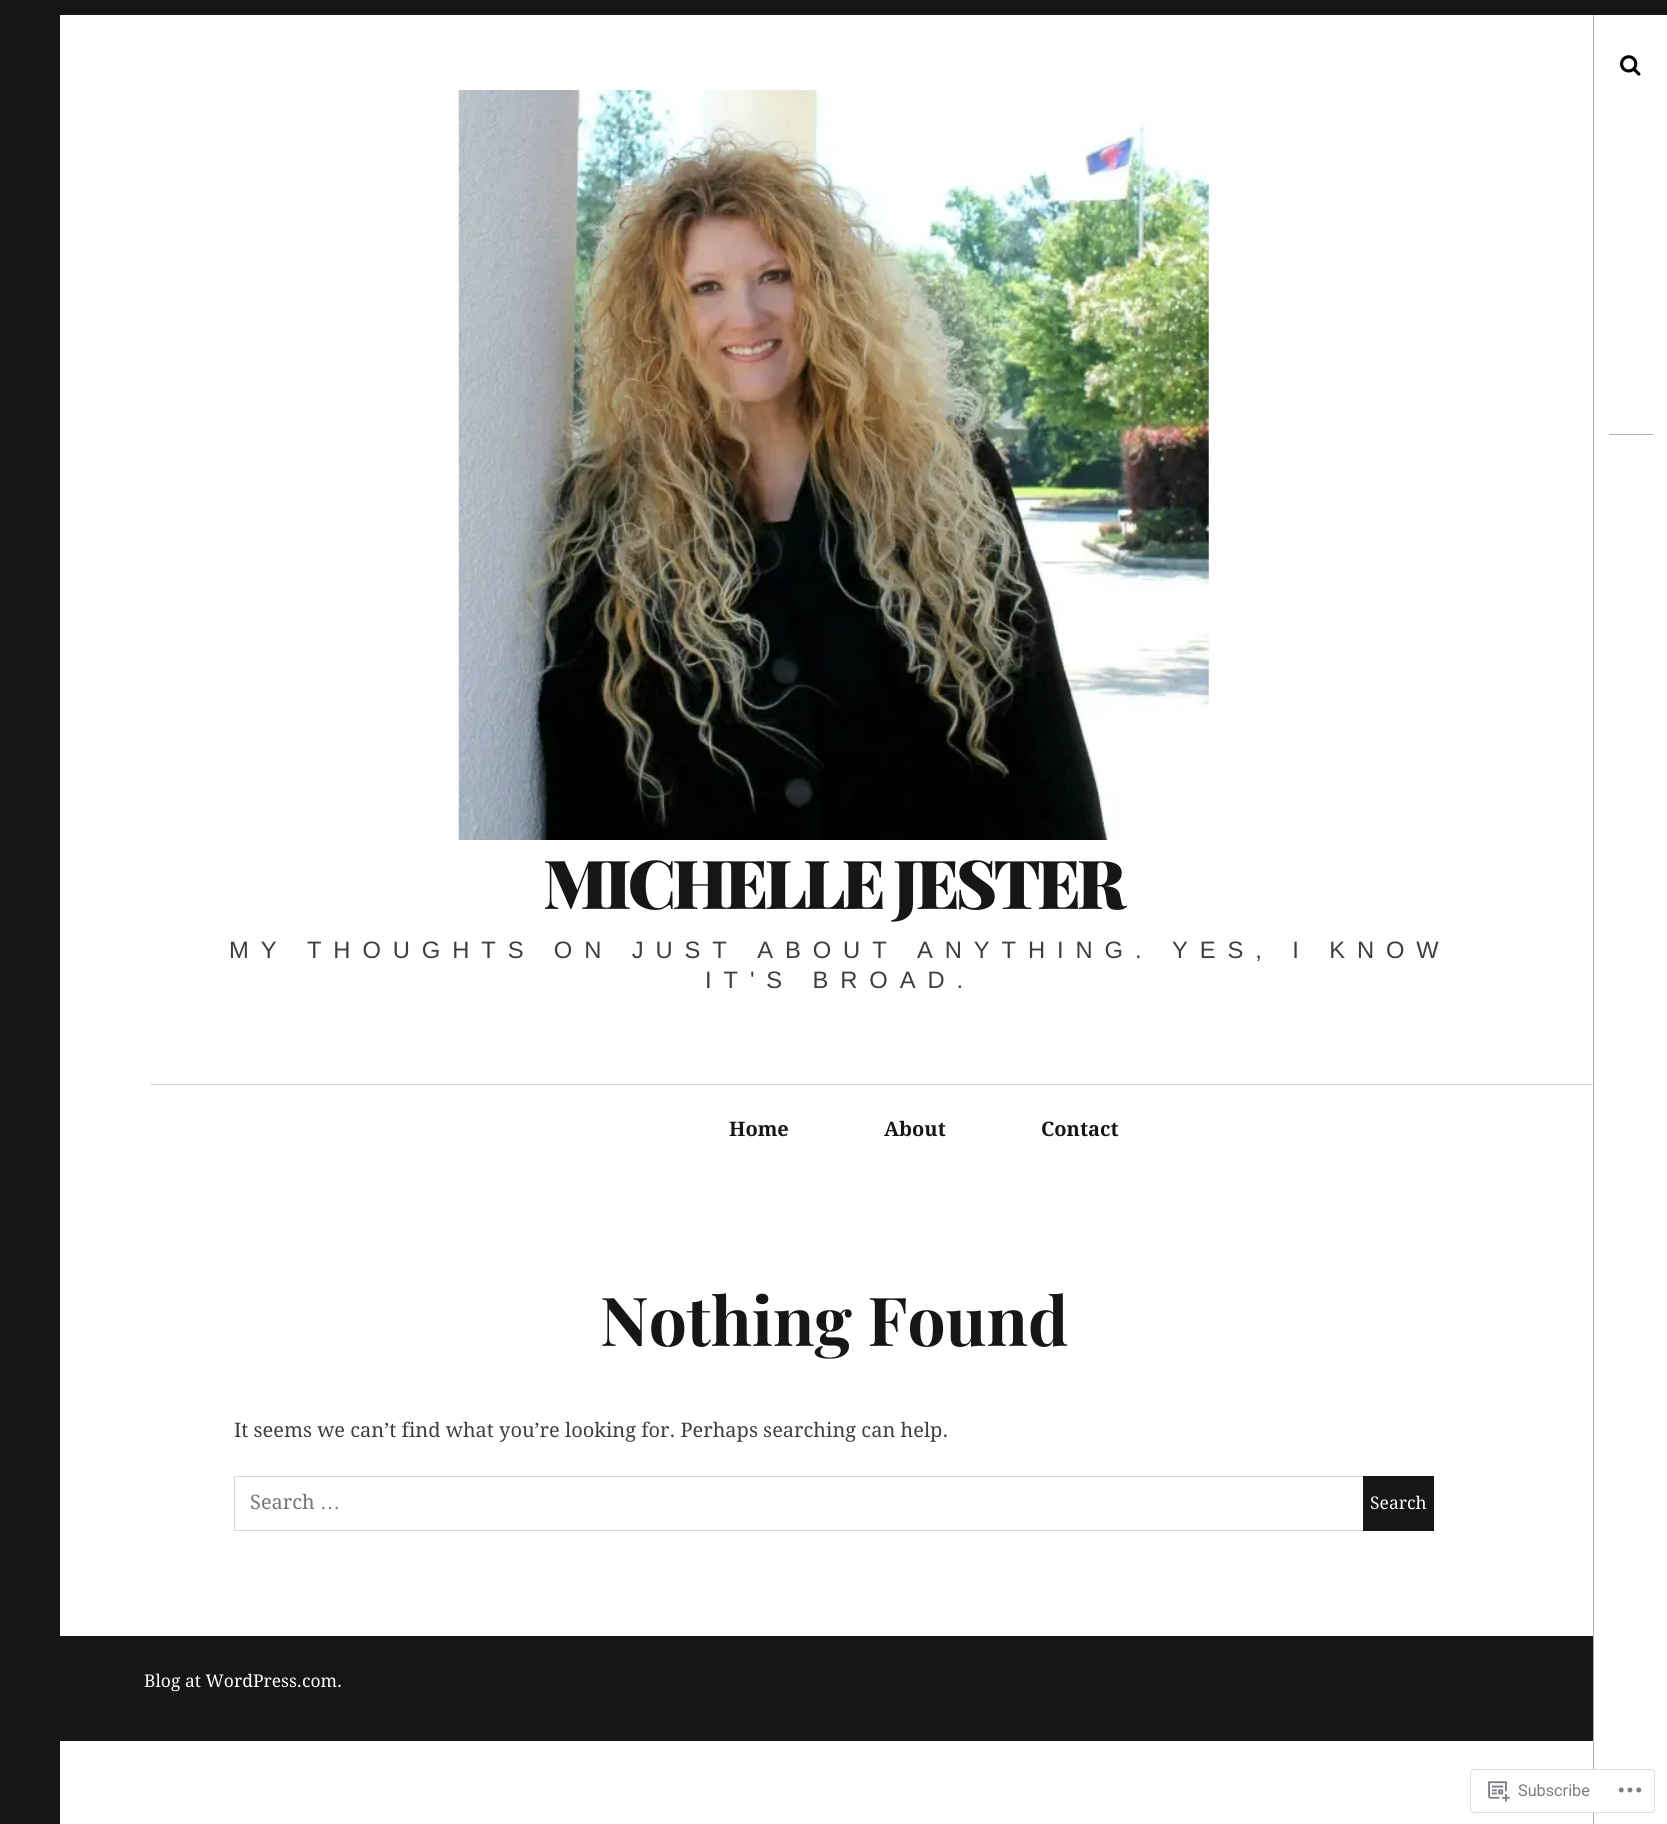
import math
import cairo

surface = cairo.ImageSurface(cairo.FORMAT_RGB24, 1667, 1824)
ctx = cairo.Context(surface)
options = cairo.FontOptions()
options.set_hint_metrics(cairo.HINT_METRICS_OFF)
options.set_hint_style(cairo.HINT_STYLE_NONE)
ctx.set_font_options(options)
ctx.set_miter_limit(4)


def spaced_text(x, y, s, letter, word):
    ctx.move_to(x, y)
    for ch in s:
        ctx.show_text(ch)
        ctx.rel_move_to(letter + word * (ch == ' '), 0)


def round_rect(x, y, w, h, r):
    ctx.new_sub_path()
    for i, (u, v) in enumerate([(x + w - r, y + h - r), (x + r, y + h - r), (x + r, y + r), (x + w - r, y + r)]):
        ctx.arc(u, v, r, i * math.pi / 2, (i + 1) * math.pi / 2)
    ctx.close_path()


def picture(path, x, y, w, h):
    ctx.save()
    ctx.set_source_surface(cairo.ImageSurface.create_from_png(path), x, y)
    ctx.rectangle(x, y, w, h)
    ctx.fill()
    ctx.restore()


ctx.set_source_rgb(1, 1, 1)
ctx.paint()
ctx.set_source_rgb(0.09, 0.086, 0.09)
ctx.rectangle(0, 0, 60, 1824)
ctx.fill()
ctx.rectangle(60, 0, 1607, 15)
ctx.fill()
picture("img1.png", 458, 90, 751, 750)
ctx.select_font_face("Playfair Display Black")
ctx.set_font_size(67.5)
spaced_text(543, 909, "MICHELLE JESTER", -3.75, 0)
ctx.select_font_face("Liberation Sans")
ctx.set_font_size(23.75)
ctx.set_source_rgb(0.239, 0.243, 0.251)
spaced_text(229, 958, "MY THOUGHTS ON JUST ABOUT ANYTHING. YES, I KNOW", 11.9, 0)
spaced_text(705, 988, "IT'S BROAD.", 11.9, 0)
ctx.set_source_rgb(0.847, 0.847, 0.851)
ctx.rectangle(150, 1084, 1443, 1)
ctx.fill()
ctx.select_font_face("Droid Serif", cairo.FONT_SLANT_NORMAL, cairo.FONT_WEIGHT_BOLD)
ctx.set_font_size(20)
ctx.set_source_rgb(0.09, 0.086, 0.09)
ctx.move_to(729, 1136)
ctx.show_text("Home")
ctx.move_to(884, 1136)
ctx.show_text("About")
ctx.move_to(1041, 1136)
ctx.show_text("Contact")
ctx.select_font_face("Playfair Display", cairo.FONT_SLANT_NORMAL, cairo.FONT_WEIGHT_BOLD)
ctx.set_font_size(67.5)
ctx.move_to(600, 1346)
ctx.show_text("Nothing Found")
ctx.select_font_face("Droid Serif")
ctx.set_font_size(20)
ctx.set_source_rgb(0.239, 0.243, 0.251)
ctx.move_to(234, 1437)
ctx.show_text("It seems we can’t find what you’re looking for. Perhaps searching can help.")
ctx.rectangle(234.5, 1476.5, 1199, 54)
ctx.set_source_rgb(0.843, 0.843, 0.843)
ctx.set_line_width(1)
ctx.stroke()
ctx.set_source_rgb(0.459, 0.459, 0.459)
ctx.move_to(250, 1509)
ctx.show_text("Search")
ctx.select_font_face("Liberation Serif")
ctx.move_to(320, 1509)
ctx.show_text("…")
ctx.set_source_rgb(0.09, 0.086, 0.09)
ctx.rectangle(1363, 1476, 71, 55)
ctx.fill()
ctx.select_font_face("Droid Serif")
ctx.set_font_size(17.5)
ctx.set_source_rgb(1, 1, 1)
ctx.move_to(1370, 1509)
ctx.show_text("Search")
ctx.set_source_rgb(0.09, 0.086, 0.09)
ctx.rectangle(60, 1636, 1533, 105)
ctx.fill()
ctx.set_source_rgb(1, 1, 1)
ctx.move_to(144, 1687)
ctx.show_text("Blog at WordPress.com.")
ctx.set_source_rgb(0.686, 0.686, 0.686)
ctx.rectangle(1593, 15, 1, 1809)
ctx.fill()
picture("img2.png", 1620, 55, 21, 21)
ctx.rectangle(1609, 434, 44, 1)
ctx.fill()
ctx.set_source_rgba(1, 1, 1, 0.98)
round_rect(1470.5, 1769.5, 184, 43, 3.5)
ctx.fill_preserve()
ctx.set_source_rgb(0.867, 0.867, 0.875)
ctx.stroke()
picture("img3.png", 1488, 1781, 22, 21)
ctx.select_font_face("Roboto")
ctx.set_font_size(16.25)
ctx.set_source_rgb(0.482, 0.498, 0.522)
ctx.move_to(1518, 1796)
ctx.show_text("Subscribe")
picture("img4.png", 1618, 1787, 24, 6)
surface.write_to_png("page.png")
